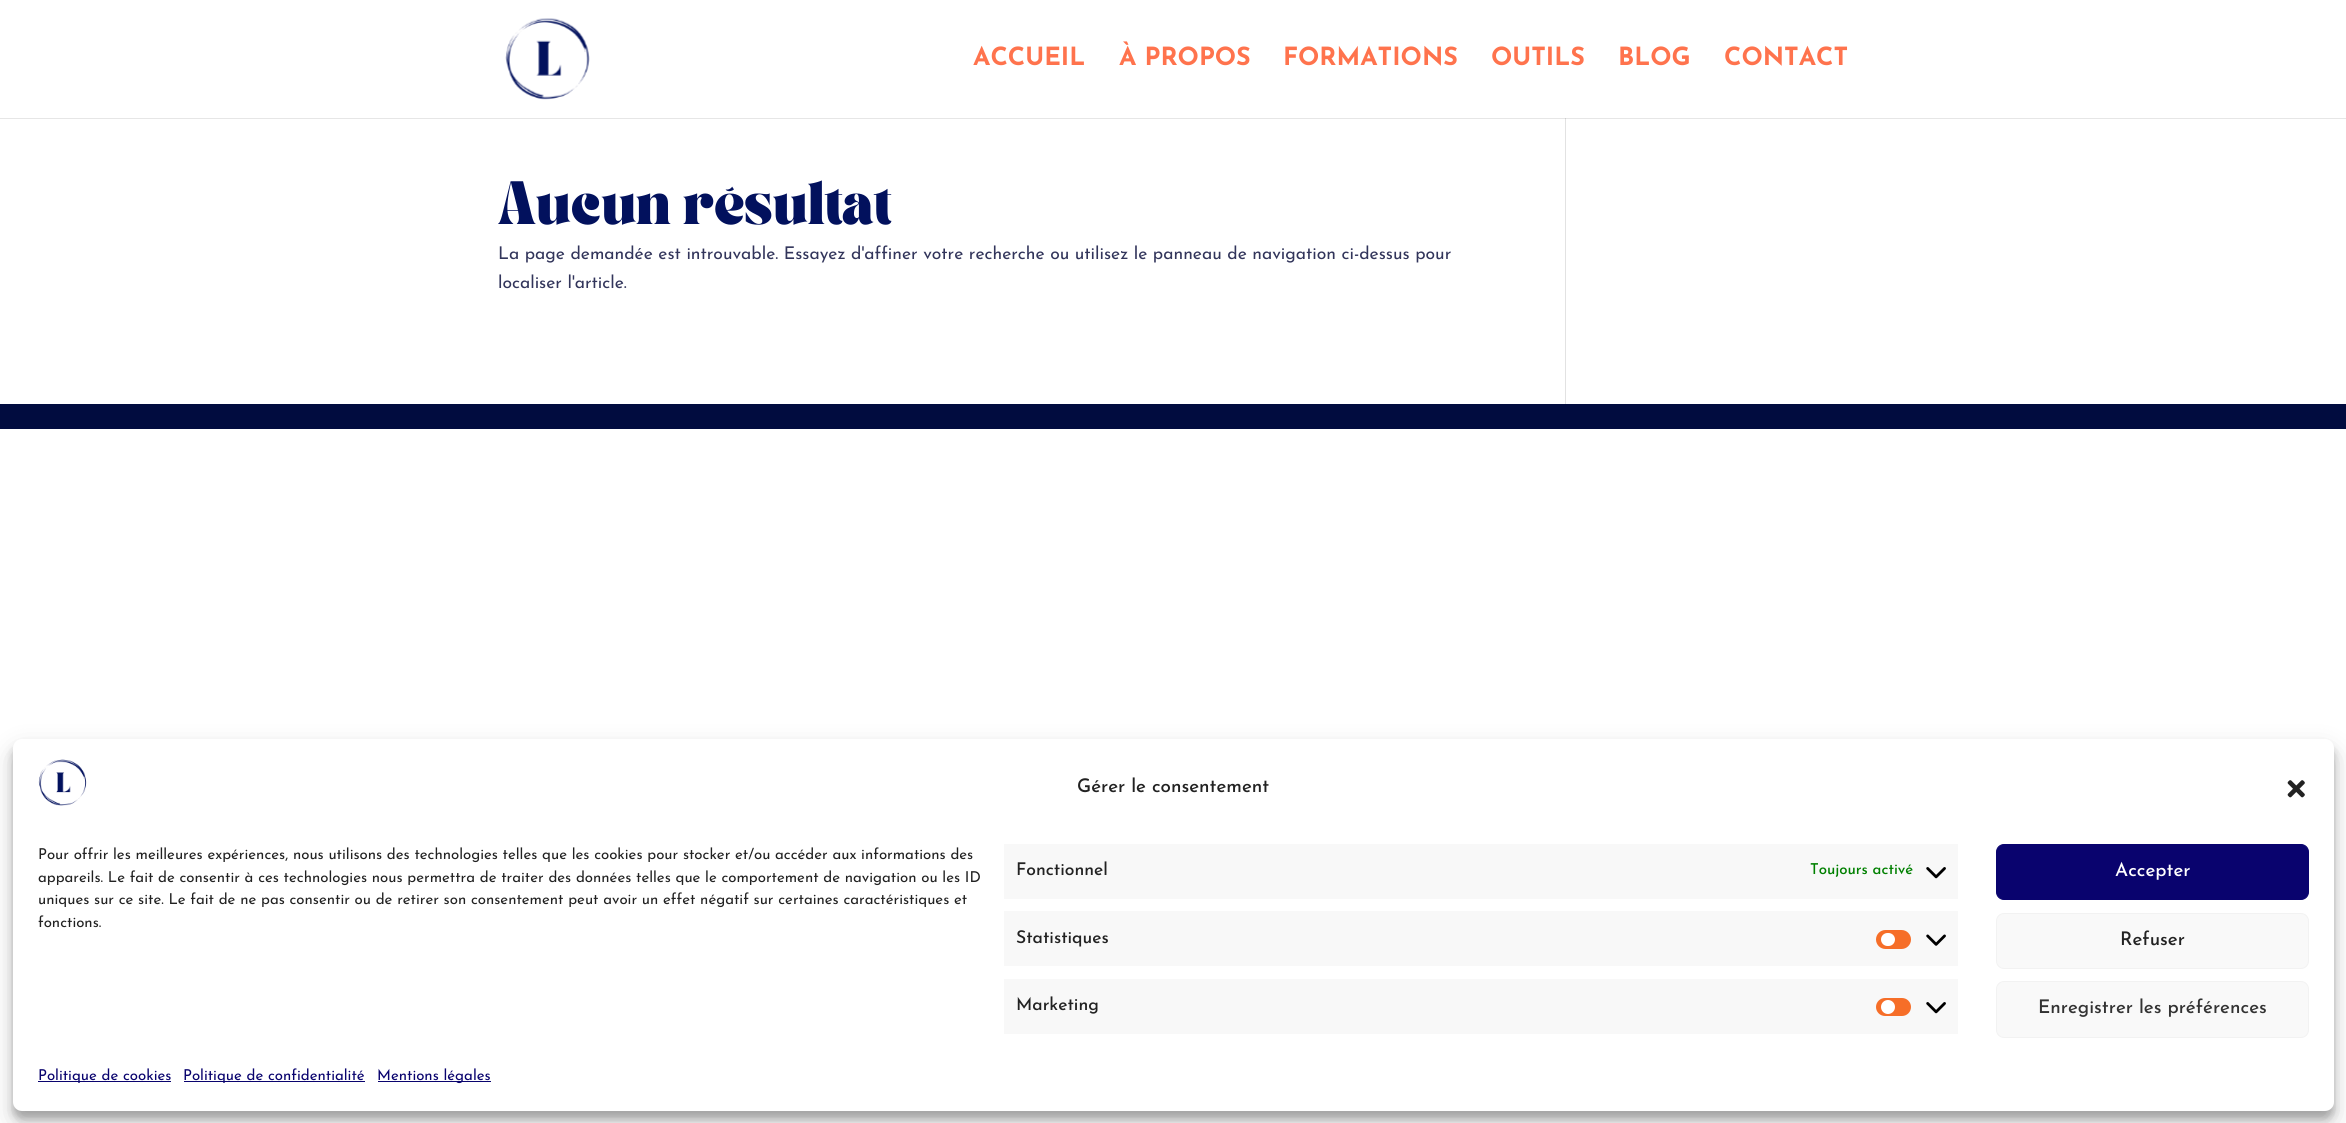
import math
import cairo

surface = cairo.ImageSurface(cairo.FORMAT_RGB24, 2346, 1123)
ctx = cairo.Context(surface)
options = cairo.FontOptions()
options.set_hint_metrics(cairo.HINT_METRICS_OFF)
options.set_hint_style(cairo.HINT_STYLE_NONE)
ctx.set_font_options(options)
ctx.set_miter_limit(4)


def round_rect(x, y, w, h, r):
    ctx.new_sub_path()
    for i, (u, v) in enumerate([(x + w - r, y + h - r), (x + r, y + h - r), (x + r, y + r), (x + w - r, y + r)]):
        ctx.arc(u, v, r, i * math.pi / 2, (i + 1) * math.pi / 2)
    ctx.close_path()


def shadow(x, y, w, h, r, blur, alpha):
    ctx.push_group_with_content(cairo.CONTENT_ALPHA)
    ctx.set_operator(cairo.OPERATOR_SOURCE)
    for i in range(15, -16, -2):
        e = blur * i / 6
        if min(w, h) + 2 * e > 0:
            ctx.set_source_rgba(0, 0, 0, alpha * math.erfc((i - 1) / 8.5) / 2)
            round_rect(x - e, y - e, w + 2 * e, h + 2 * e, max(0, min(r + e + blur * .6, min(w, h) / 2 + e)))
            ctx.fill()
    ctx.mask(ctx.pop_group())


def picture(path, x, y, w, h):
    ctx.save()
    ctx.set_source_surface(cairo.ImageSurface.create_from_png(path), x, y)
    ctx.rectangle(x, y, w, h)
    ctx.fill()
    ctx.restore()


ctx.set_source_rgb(1, 1, 1)
ctx.paint()
ctx.set_source_rgb(0.902, 0.902, 0.902)
ctx.rectangle(0, 118, 2346, 1)
ctx.fill()
picture("img1.png", 505, 18, 85, 82)
ctx.select_font_face("Josefin Sans", cairo.FONT_SLANT_NORMAL, cairo.FONT_WEIGHT_BOLD)
ctx.set_font_size(25)
ctx.set_source_rgb(1, 0.451, 0.302)
ctx.move_to(973, 65)
ctx.show_text("ACCUEIL")
ctx.move_to(1119, 65)
ctx.show_text("À PROPOS")
ctx.move_to(1283, 65)
ctx.show_text("FORMATIONS")
ctx.move_to(1491, 65)
ctx.show_text("OUTILS")
ctx.move_to(1618, 65)
ctx.show_text("BLOG")
ctx.move_to(1724, 65)
ctx.show_text("CONTACT")
ctx.select_font_face("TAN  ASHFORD", cairo.FONT_SLANT_NORMAL, cairo.FONT_WEIGHT_BOLD)
ctx.set_font_size(37.5)
ctx.set_source_rgb(0.008, 0.067, 0.365)
ctx.move_to(498, 224)
ctx.show_text("Aucun résultat")
ctx.select_font_face("Josefin Sans")
ctx.set_font_size(17.5)
ctx.set_source_rgb(0.196, 0.208, 0.357)
ctx.move_to(498, 259)
ctx.show_text("La page demandée est introuvable. Essayez d'affiner votre recherche ou utilisez le panneau de navigation ci-dessus pour")
ctx.move_to(498, 288)
ctx.show_text("localiser l'article.")
ctx.set_source_rgb(0.886, 0.886, 0.886)
ctx.rectangle(1565, 118, 1, 286)
ctx.fill()
ctx.set_source_rgb(0.796, 0.796, 0.796)
ctx.rectangle(1565, 118, 1, 1)
ctx.fill()
ctx.set_source_rgb(0.004, 0.047, 0.247)
ctx.rectangle(0, 404, 2346, 25)
ctx.fill()
ctx.set_source_rgb(0, 0, 0)
shadow(13, 746, 2321, 373, 9, 4, 0.23)
shadow(13, 751, 2321, 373, 9, 12.5, 0.19)
ctx.set_source_rgb(1, 1, 1)
round_rect(13, 739, 2321, 372, 9)
ctx.fill()
picture("img2.png", 38, 759, 49, 47)
ctx.select_font_face("Josefin Sans Medium")
ctx.set_font_size(18.75)
ctx.set_source_rgb(0.133, 0.133, 0.133)
ctx.move_to(1077, 792)
ctx.show_text("Gérer le consentement")
picture("img3.png", 2287, 780, 18, 18)
ctx.select_font_face("Josefin Sans")
ctx.set_font_size(15)
ctx.move_to(38, 859)
ctx.show_text("Pour offrir les meilleures expériences, nous utilisons des technologies telles que les cookies pour stocker et/ou accéder aux informations des")
ctx.move_to(38, 882)
ctx.show_text("appareils. Le fait de consentir à ces technologies nous permettra de traiter des données telles que le comportement de navigation ou les ID")
ctx.move_to(38, 904)
ctx.show_text("uniques sur ce site. Le fait de ne pas consentir ou de retirer son consentement peut avoir un effet négatif sur certaines caractéristiques et")
ctx.move_to(38, 927)
ctx.show_text("fonctions.")
ctx.set_source_rgb(0.969, 0.969, 0.969)
ctx.rectangle(1004, 844, 954, 55)
ctx.fill()
ctx.select_font_face("Josefin Sans Medium")
ctx.set_font_size(17.5)
ctx.set_source_rgb(0.133, 0.133, 0.133)
ctx.move_to(1016, 875)
ctx.show_text("Fonctionnel")
ctx.set_font_size(15)
ctx.set_source_rgb(0, 0.502, 0)
ctx.move_to(1810, 874)
ctx.show_text("Toujours activé")
picture("img4.png", 1926, 867, 20, 12)
ctx.set_source_rgb(0.969, 0.969, 0.969)
ctx.rectangle(1004, 911, 954, 55)
ctx.fill()
ctx.set_font_size(17.5)
ctx.set_source_rgb(0.133, 0.133, 0.133)
ctx.move_to(1016, 943)
ctx.show_text("Statistiques")
ctx.set_source_rgb(0.961, 0.431, 0.157)
round_rect(1876, 930, 35, 19, 9.5)
ctx.fill()
ctx.set_source_rgb(1, 1, 1)
round_rect(1881, 933, 14, 13, 6.5)
ctx.fill()
picture("img5.png", 1926, 934, 20, 12)
ctx.set_source_rgb(0.969, 0.969, 0.969)
ctx.rectangle(1004, 979, 954, 55)
ctx.fill()
ctx.set_source_rgb(0.133, 0.133, 0.133)
ctx.move_to(1016, 1010)
ctx.show_text("Marketing")
ctx.set_source_rgb(0.961, 0.431, 0.157)
round_rect(1876, 998, 35, 18, 9)
ctx.fill()
ctx.set_source_rgb(1, 1, 1)
ctx.arc(1888, 1007, 7, 0, 2 * math.pi)
ctx.fill()
picture("img4.png", 1926, 1002, 20, 12)
ctx.set_source_rgb(0.039, 0.012, 0.431)
round_rect(1996.5, 844.5, 312, 55, 7.5)
ctx.fill_preserve()
ctx.set_line_width(1)
ctx.stroke()
ctx.set_font_size(18.75)
ctx.set_source_rgb(1, 1, 1)
ctx.move_to(2115, 876)
ctx.show_text("Accepter")
ctx.set_source_rgb(0.976, 0.976, 0.976)
round_rect(1996.5, 913.5, 312, 55, 7.5)
ctx.fill_preserve()
ctx.set_source_rgb(0.949, 0.949, 0.949)
ctx.stroke()
ctx.set_source_rgb(0.133, 0.133, 0.133)
ctx.move_to(2120, 945)
ctx.show_text("Refuser")
ctx.set_source_rgb(0.976, 0.976, 0.976)
round_rect(1996.5, 981.5, 312, 56, 7.5)
ctx.fill_preserve()
ctx.set_source_rgb(0.949, 0.949, 0.949)
ctx.stroke()
ctx.set_source_rgb(0.2, 0.2, 0.2)
ctx.move_to(2038, 1013)
ctx.show_text("Enregistrer les préférences")
ctx.set_source_rgb(0.039, 0.012, 0.431)
ctx.rectangle(38, 1081, 133, 1)
ctx.fill()
ctx.select_font_face("Josefin Sans")
ctx.set_font_size(15)
ctx.move_to(38, 1080)
ctx.show_text("Politique de cookies")
ctx.rectangle(184, 1081, 181, 1)
ctx.fill()
ctx.move_to(183, 1080)
ctx.show_text("Politique de confidentialité")
ctx.rectangle(378, 1081, 113, 1)
ctx.fill()
ctx.move_to(377, 1080)
ctx.show_text("Mentions légales")
surface.write_to_png("page.png")
